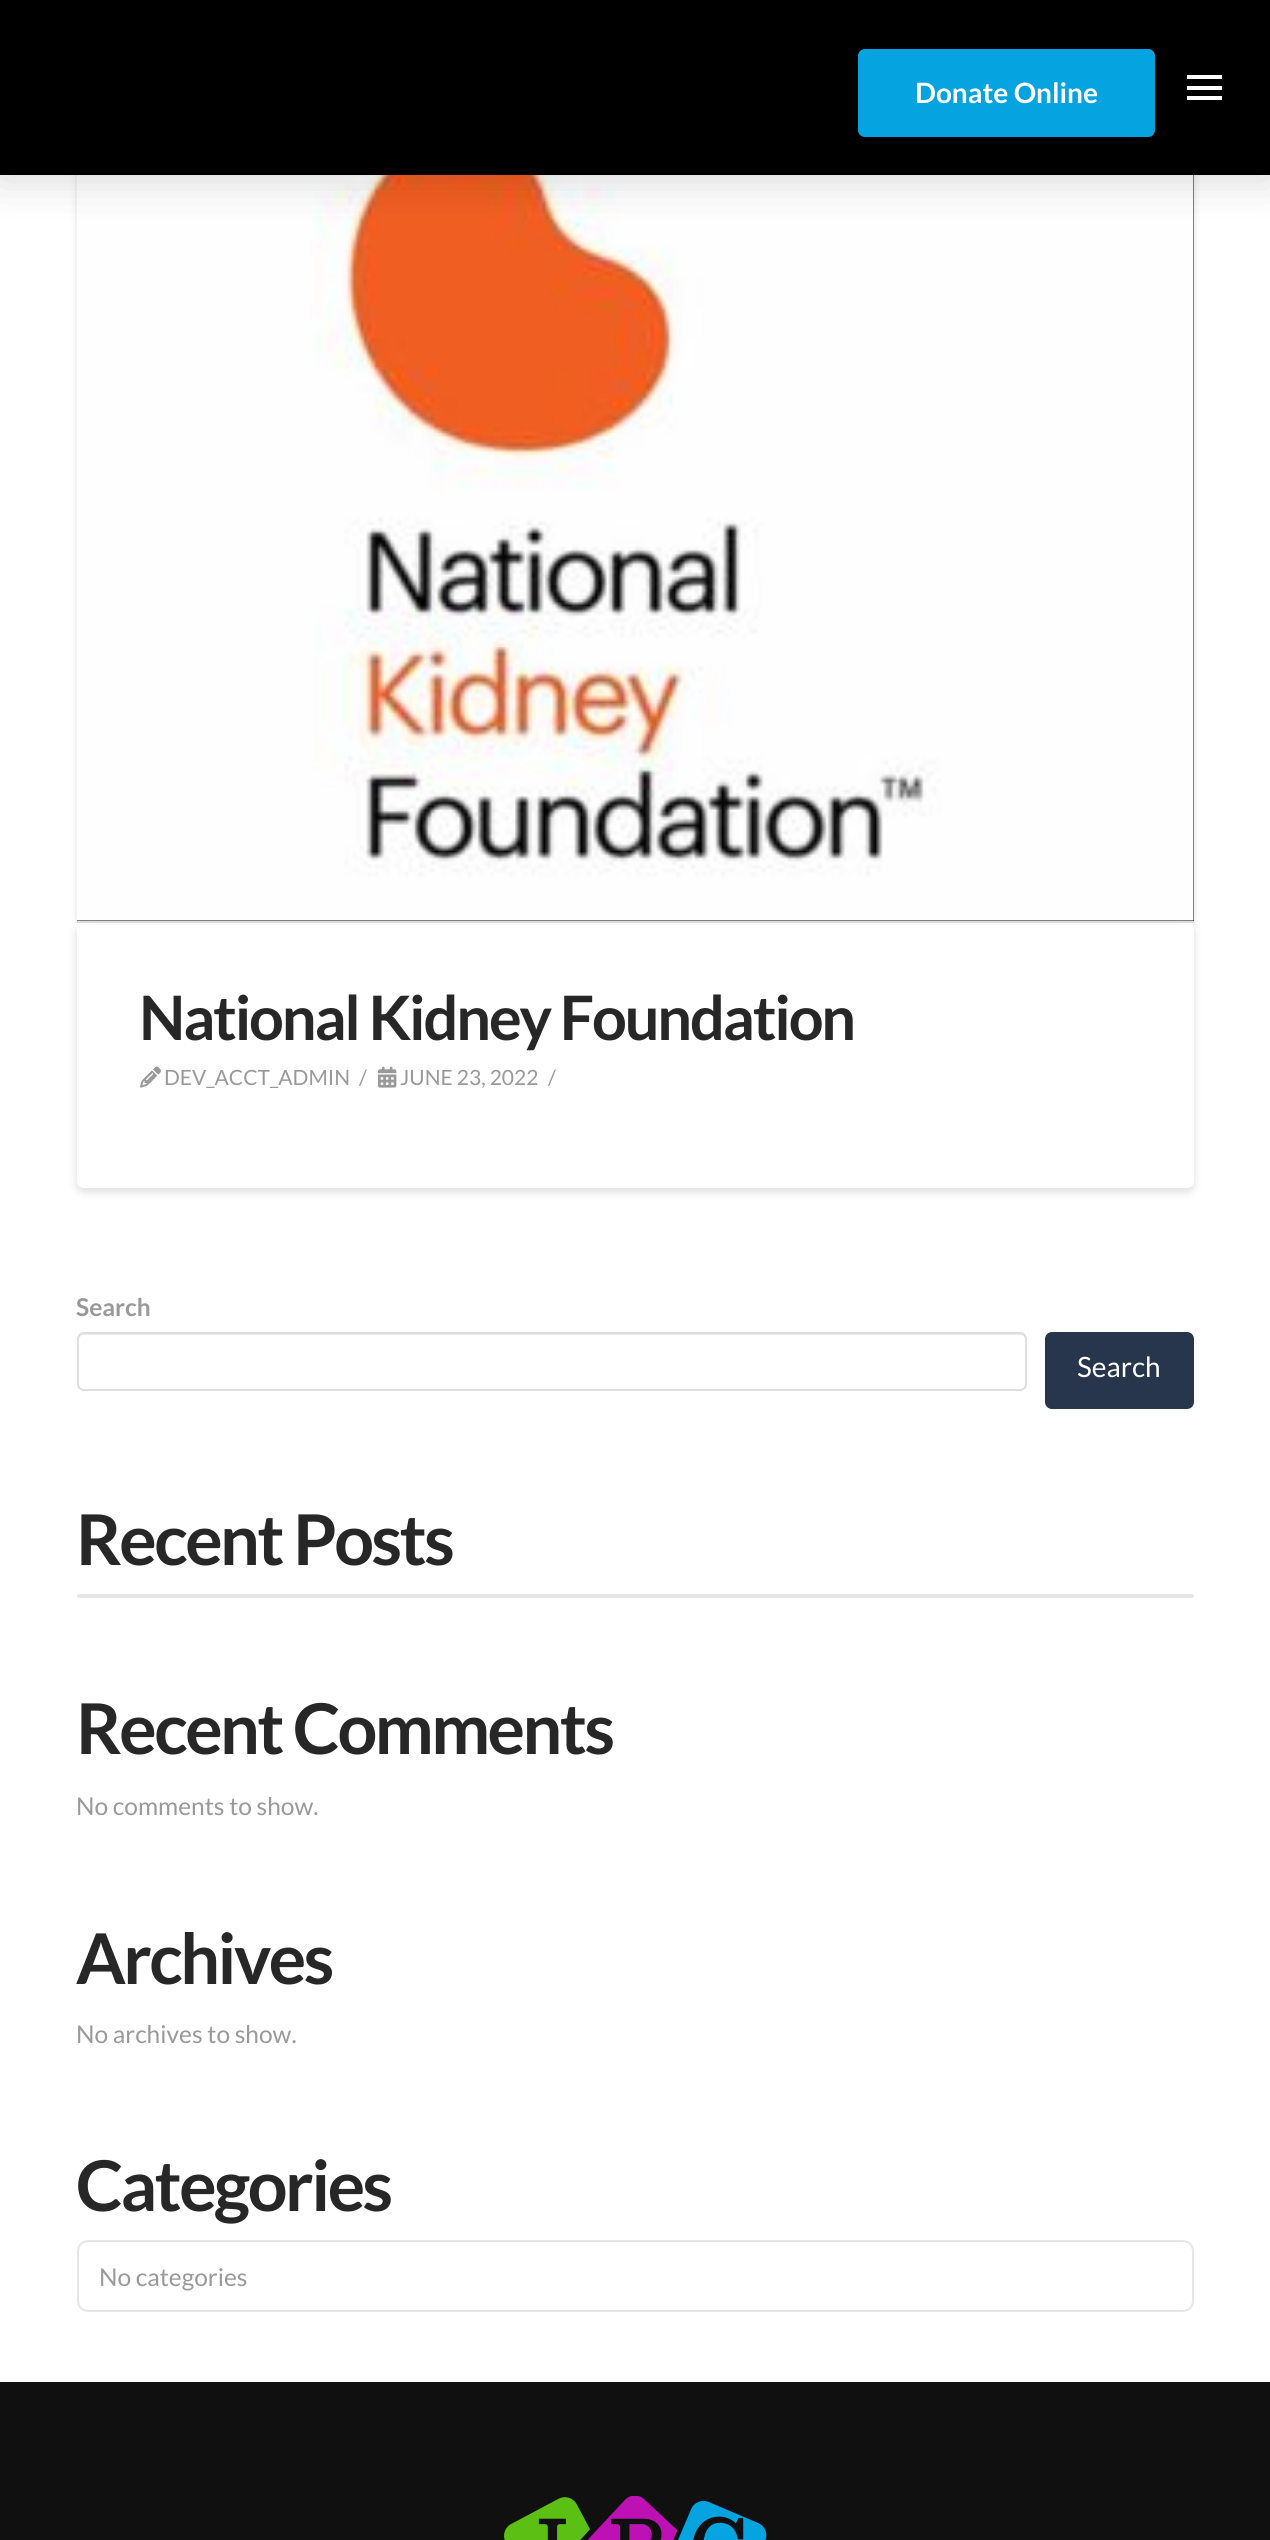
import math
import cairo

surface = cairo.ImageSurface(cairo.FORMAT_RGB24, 1270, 2540)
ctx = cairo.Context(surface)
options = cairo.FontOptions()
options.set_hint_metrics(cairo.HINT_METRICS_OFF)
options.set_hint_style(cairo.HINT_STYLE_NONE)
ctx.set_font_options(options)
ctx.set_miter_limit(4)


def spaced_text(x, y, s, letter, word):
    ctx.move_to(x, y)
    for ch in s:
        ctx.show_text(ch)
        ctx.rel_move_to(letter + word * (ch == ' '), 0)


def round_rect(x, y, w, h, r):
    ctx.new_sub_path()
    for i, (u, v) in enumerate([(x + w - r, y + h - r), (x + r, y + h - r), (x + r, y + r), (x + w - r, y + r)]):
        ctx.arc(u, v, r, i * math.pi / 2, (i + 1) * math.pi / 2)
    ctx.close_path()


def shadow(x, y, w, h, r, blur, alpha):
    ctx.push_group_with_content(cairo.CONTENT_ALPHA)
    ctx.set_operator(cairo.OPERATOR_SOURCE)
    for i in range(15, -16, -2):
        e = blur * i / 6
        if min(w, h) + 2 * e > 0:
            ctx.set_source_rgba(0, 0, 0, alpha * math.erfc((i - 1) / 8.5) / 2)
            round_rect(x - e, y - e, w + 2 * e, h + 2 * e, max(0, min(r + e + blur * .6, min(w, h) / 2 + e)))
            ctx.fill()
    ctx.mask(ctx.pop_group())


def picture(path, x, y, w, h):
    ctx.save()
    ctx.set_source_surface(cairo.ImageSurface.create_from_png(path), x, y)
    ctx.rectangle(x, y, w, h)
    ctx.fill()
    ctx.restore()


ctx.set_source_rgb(1, 1, 1)
ctx.paint()
ctx.set_source_rgb(0, 0, 0)
shadow(77, 926, 1117, 266, 7, 4.5, 0.13)
ctx.set_source_rgb(1, 1, 1)
ctx.new_path()
ctx.move_to(77, 922)
ctx.line_to(1194, 922)
ctx.line_to(1194, 1181)
ctx.curve_to(1194, 1185, 1191, 1188, 1187, 1188)
ctx.line_to(84, 1188)
ctx.curve_to(80, 1188, 77, 1185, 77, 1181)
ctx.close_path()
ctx.fill()
ctx.set_source_rgb(0, 0, 0)
shadow(77, 81, 1103, 838, 0, 3.5, 0.13)
shadow(91, 81, 1103, 838, 0, 3.5, 0.13)
ctx.set_source_rgb(0, 0, 0)
ctx.rectangle(77, 175, 1117, 746)
ctx.fill()
picture("img1.png", 77, 175, 1117, 746)
ctx.set_source_rgb(0, 0, 0)
shadow(0, 5, 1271, 175, 0, 22, 0.15)
ctx.set_source_rgb(0, 0, 0)
ctx.rectangle(0, 0, 1270, 175)
ctx.fill()
ctx.set_source_rgb(0.02, 0.643, 0.882)
round_rect(859, 50, 295, 86, 6)
ctx.fill_preserve()
ctx.stroke()
ctx.select_font_face("Lato", cairo.FONT_SLANT_NORMAL, cairo.FONT_WEIGHT_BOLD)
ctx.set_font_size(28)
ctx.set_source_rgb(1, 1, 1)
ctx.move_to(915, 103)
ctx.show_text("Donate Online")
ctx.rectangle(1187, 75, 35, 4)
ctx.fill()
ctx.rectangle(1187, 86, 35, 4)
ctx.fill()
ctx.rectangle(1187, 96, 35, 4)
ctx.fill()
ctx.set_source_rgb(0.867, 0.867, 0.867)
ctx.rectangle(77, 921, 1117, 2)
ctx.fill()
ctx.set_font_size(61.25)
ctx.set_source_rgb(0.153, 0.153, 0.153)
spaced_text(139, 1040, "National Kidney Foundation", -2.15, 0)
picture("img2.png", 140, 1066, 21, 22)
ctx.select_font_face("Lato")
ctx.set_font_size(21)
ctx.set_source_rgb(0.6, 0.6, 0.6)
ctx.move_to(164, 1085)
ctx.show_text("DEV_ACCT_ADMIN")
ctx.move_to(359, 1085)
ctx.show_text("/")
picture("img3.png", 378, 1066, 19, 22)
ctx.move_to(400, 1085)
ctx.show_text("JUNE 23, 2022")
ctx.move_to(548, 1085)
ctx.show_text("/")
ctx.select_font_face("Lato", cairo.FONT_SLANT_NORMAL, cairo.FONT_WEIGHT_BOLD)
ctx.set_font_size(24.5)
ctx.move_to(76, 1316)
ctx.show_text("Search")
ctx.set_source_rgb(0.925, 0.925, 0.925)
ctx.new_path()
ctx.move_to(84, 1335)
ctx.line_to(1020, 1335)
ctx.curve_to(1023, 1335, 1026, 1338, 1026, 1340)
ctx.curve_to(1026, 1337, 1024, 1334, 1021, 1334)
ctx.line_to(84, 1334)
ctx.curve_to(81, 1334, 79, 1337, 79, 1340)
ctx.curve_to(79, 1338, 81, 1335, 84, 1335)
ctx.close_path()
ctx.fill()
round_rect(78, 1333, 948, 57, 6)
ctx.set_source_rgb(0.867, 0.867, 0.867)
ctx.stroke()
ctx.set_source_rgb(0.153, 0.212, 0.302)
round_rect(1046, 1333, 147, 75, 6)
ctx.fill_preserve()
ctx.stroke()
ctx.select_font_face("Lato")
ctx.set_font_size(28)
ctx.set_source_rgb(1, 1, 1)
ctx.move_to(1077, 1377)
ctx.show_text("Search")
ctx.select_font_face("Lato", cairo.FONT_SLANT_NORMAL, cairo.FONT_WEIGHT_BOLD)
ctx.set_font_size(70)
ctx.set_source_rgb(0.153, 0.153, 0.153)
spaced_text(76, 1565, "Recent Posts", -2.5, 0)
ctx.set_source_rgb(0.902, 0.902, 0.902)
round_rect(77, 1594, 1117, 4, 2)
ctx.fill()
ctx.set_source_rgb(0.153, 0.153, 0.153)
spaced_text(76, 1754, "Recent Comments", -2.5, 0)
ctx.select_font_face("Lato")
ctx.set_font_size(24.5)
ctx.set_source_rgb(0.6, 0.6, 0.6)
ctx.move_to(76, 1815)
ctx.show_text("No comments to show.")
ctx.select_font_face("Lato", cairo.FONT_SLANT_NORMAL, cairo.FONT_WEIGHT_BOLD)
ctx.set_font_size(70)
ctx.set_source_rgb(0.153, 0.153, 0.153)
spaced_text(76, 1984, "Archives", -2.5, 0)
ctx.select_font_face("Lato")
ctx.set_font_size(24.5)
ctx.set_source_rgb(0.6, 0.6, 0.6)
ctx.move_to(76, 2043)
ctx.show_text("No archives to show.")
ctx.select_font_face("Lato", cairo.FONT_SLANT_NORMAL, cairo.FONT_WEIGHT_BOLD)
ctx.set_font_size(70)
ctx.set_source_rgb(0.153, 0.153, 0.153)
spaced_text(76, 2211, "Categories", -2.5, 0)
round_rect(78, 2241, 1115, 70, 10)
ctx.set_source_rgb(0.902, 0.902, 0.902)
ctx.stroke()
ctx.select_font_face("Lato")
ctx.set_font_size(24.5)
ctx.set_source_rgb(0.6, 0.6, 0.6)
ctx.move_to(99, 2286)
ctx.show_text("No categories")
ctx.set_source_rgb(0.063, 0.063, 0.063)
ctx.rectangle(0, 2382, 1270, 158)
ctx.fill()
picture("img4.png", 504, 2496, 263, 44)
surface.write_to_png("page.png")
